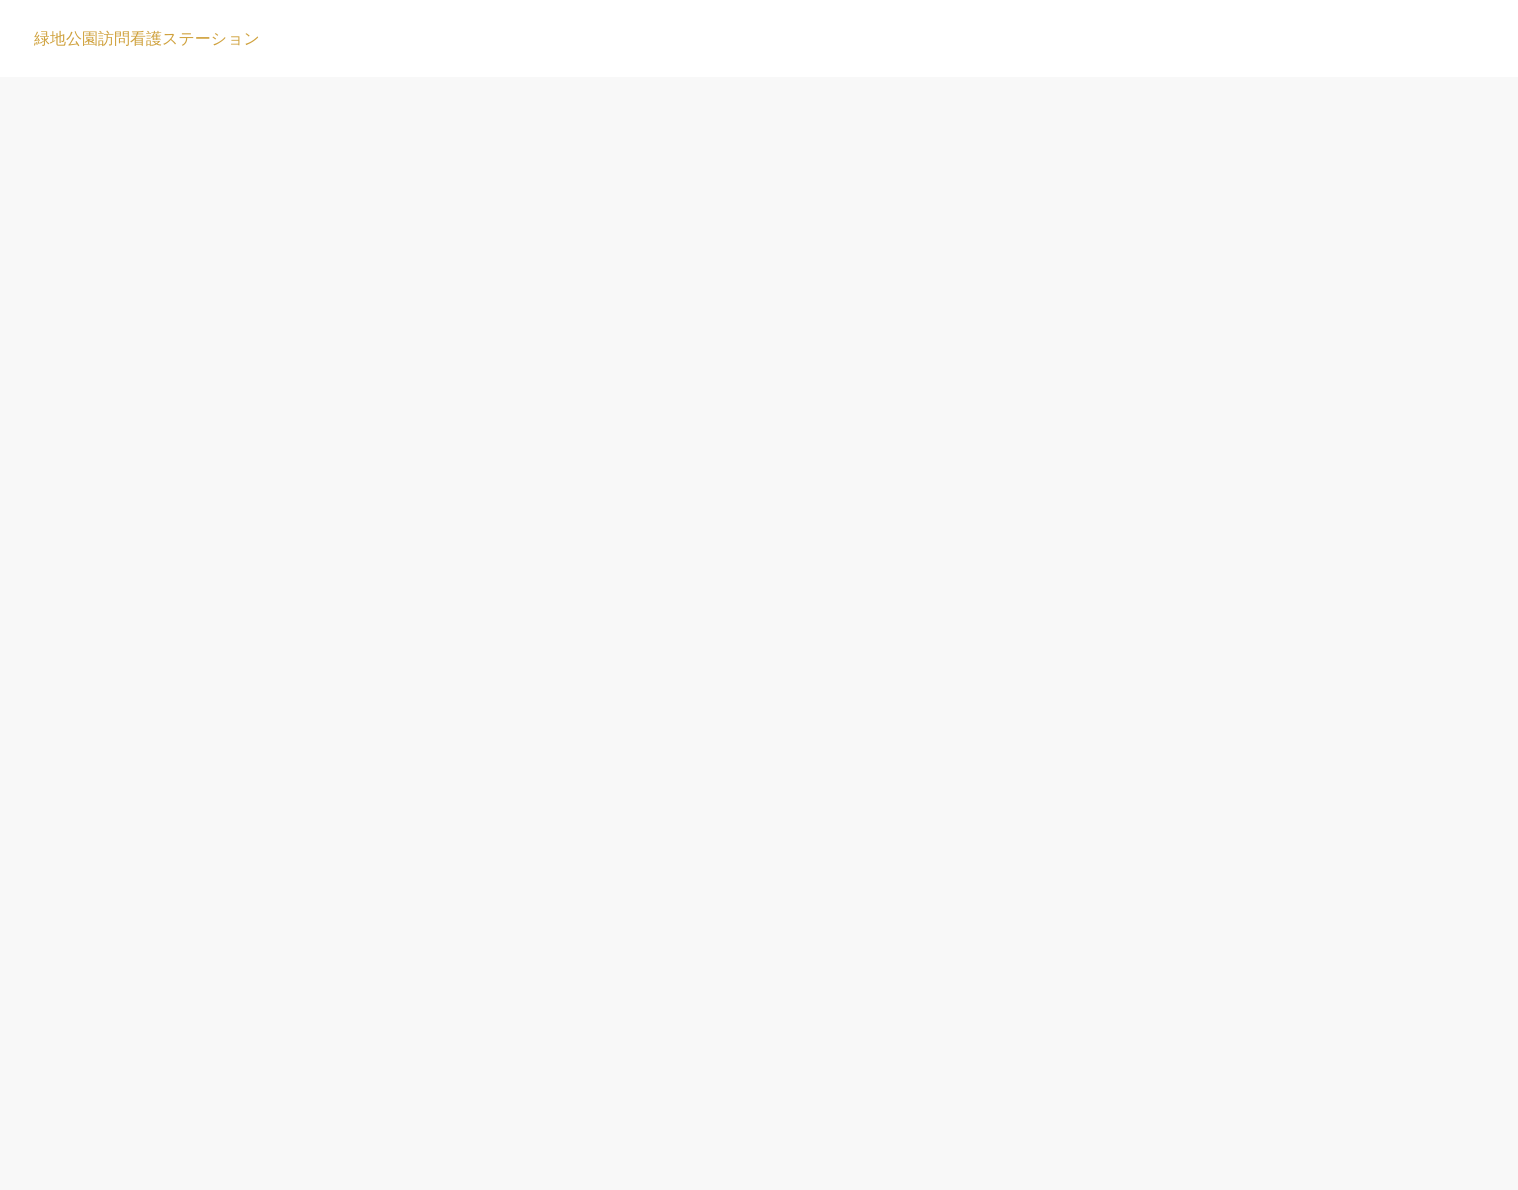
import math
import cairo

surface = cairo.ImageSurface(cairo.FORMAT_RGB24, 1518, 1190)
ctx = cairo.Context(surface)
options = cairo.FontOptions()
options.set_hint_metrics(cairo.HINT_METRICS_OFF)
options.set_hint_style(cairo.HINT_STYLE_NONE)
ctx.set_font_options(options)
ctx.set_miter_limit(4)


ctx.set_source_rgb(0.969, 0.969, 0.969)
ctx.paint()
ctx.set_source_rgb(1, 1, 1)
ctx.rectangle(0, 0, 1518, 77)
ctx.fill()
ctx.select_font_face("WenQuanYi Zen Hei Medium")
ctx.set_font_size(16)
ctx.set_source_rgb(0.812, 0.631, 0.235)
ctx.move_to(34, 44)
ctx.show_text("緑地公園訪問看護ステーション")
surface.write_to_png("page.png")
